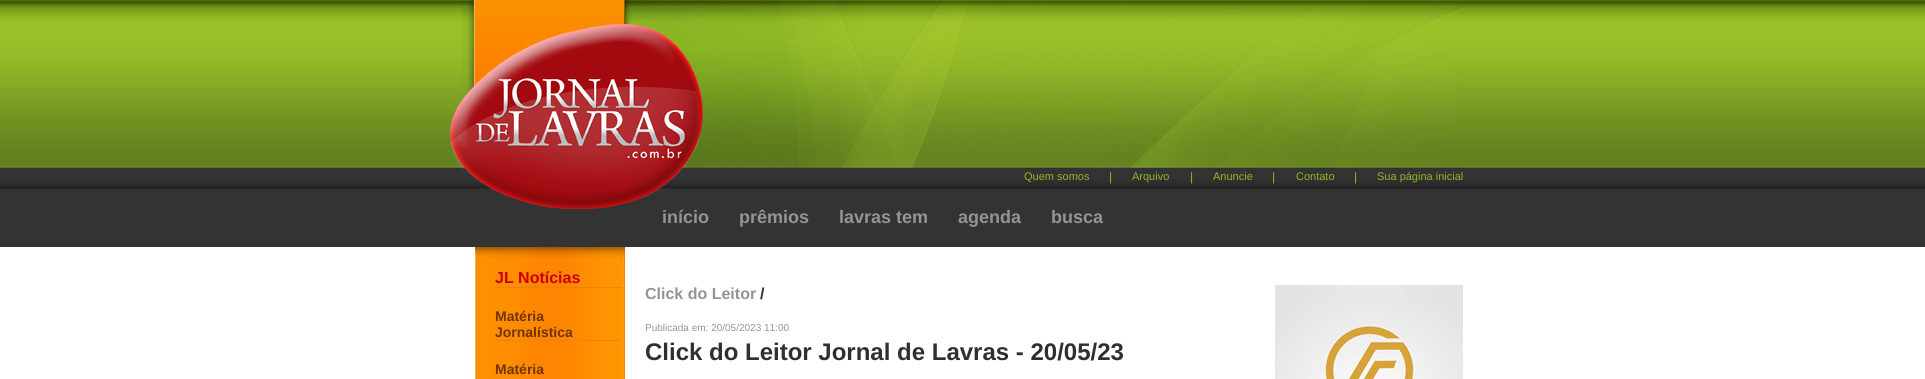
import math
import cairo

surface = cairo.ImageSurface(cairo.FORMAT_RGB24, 1925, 379)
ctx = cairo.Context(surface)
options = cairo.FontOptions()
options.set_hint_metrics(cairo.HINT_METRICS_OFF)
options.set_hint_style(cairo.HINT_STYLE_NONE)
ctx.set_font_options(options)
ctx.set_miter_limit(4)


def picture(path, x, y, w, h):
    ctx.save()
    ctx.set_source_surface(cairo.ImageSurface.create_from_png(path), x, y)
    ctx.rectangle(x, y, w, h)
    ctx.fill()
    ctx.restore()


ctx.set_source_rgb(1, 1, 1)
ctx.paint()
picture("img1.png", 0, 0, 1925, 168)
picture("img2.png", 625, 0, 838, 168)
picture("img4.png", 462, 0, 13, 168)
picture("img5.png", 475, 0, 148, 85)
picture("img6.png", 623, 0, 2, 25)
picture("img7.png", 0, 168, 1925, 21)
ctx.set_source_rgb(0.2, 0.2, 0.2)
ctx.rectangle(0, 189, 1925, 58)
ctx.fill()
picture("img3.png", 450, 24, 253, 185)
ctx.select_font_face("Liberation Sans")
ctx.set_font_size(11)
ctx.set_source_rgb(0.553, 0.718, 0.145)
ctx.move_to(1024, 180)
ctx.show_text("Quem somos")
ctx.set_font_size(12)
ctx.move_to(1109, 181)
ctx.show_text("|")
ctx.set_font_size(11)
ctx.move_to(1132, 180)
ctx.show_text("Arquivo")
ctx.set_font_size(12)
ctx.move_to(1190, 181)
ctx.show_text("|")
ctx.set_font_size(11)
ctx.move_to(1213, 180)
ctx.show_text("Anuncie")
ctx.set_font_size(12)
ctx.move_to(1272, 181)
ctx.show_text("|")
ctx.set_font_size(11)
ctx.move_to(1296, 180)
ctx.show_text("Contato")
ctx.set_font_size(12)
ctx.move_to(1354, 181)
ctx.show_text("|")
ctx.set_font_size(11)
ctx.move_to(1377, 180)
ctx.show_text("Sua página inicial")
ctx.select_font_face("Liberation Sans", cairo.FONT_SLANT_NORMAL, cairo.FONT_WEIGHT_BOLD)
ctx.set_font_size(18)
ctx.set_source_rgb(0.58, 0.58, 0.58)
ctx.move_to(662, 223)
ctx.show_text("início")
ctx.move_to(739, 223)
ctx.show_text("prêmios")
ctx.move_to(839, 223)
ctx.show_text("lavras tem")
ctx.move_to(958, 223)
ctx.show_text("agenda")
ctx.move_to(1051, 223)
ctx.show_text("busca")
picture("img8.png", 475, 263, 150, 116)
picture("img9.png", 475, 247, 150, 16)
ctx.set_source_rgb(0.929, 0.514, 0)
ctx.rectangle(495, 287, 127, 1)
ctx.fill()
ctx.set_font_size(16)
ctx.set_source_rgb(0.8, 0, 0)
ctx.move_to(495, 283)
ctx.show_text("JL Notícias")
ctx.set_source_rgb(0.929, 0.514, 0)
ctx.rectangle(495, 340, 125, 1)
ctx.fill()
ctx.set_font_size(14)
ctx.set_source_rgb(0.447, 0.208, 0.004)
ctx.move_to(495, 321)
ctx.show_text("Matéria")
ctx.move_to(495, 337)
ctx.show_text("Jornalística")
ctx.move_to(495, 374)
ctx.show_text("Matéria")
ctx.set_font_size(16)
ctx.set_source_rgb(0.58, 0.58, 0.58)
ctx.move_to(645, 299)
ctx.show_text("Click do Leitor")
ctx.set_source_rgb(0.188, 0.188, 0.188)
ctx.move_to(760, 299)
ctx.show_text("/")
ctx.select_font_face("Liberation Sans")
ctx.set_font_size(10)
ctx.set_source_rgb(0.58, 0.58, 0.58)
ctx.move_to(645, 331)
ctx.show_text("Publicada em: 20/05/2023 11:00")
ctx.select_font_face("Liberation Sans", cairo.FONT_SLANT_NORMAL, cairo.FONT_WEIGHT_BOLD)
ctx.set_font_size(24)
ctx.set_source_rgb(0.188, 0.188, 0.188)
ctx.move_to(645, 360)
ctx.show_text("Click do Leitor Jornal de Lavras - 20/05/23")
picture("img10.png", 1275, 285, 188, 94)
surface.write_to_png("page.png")
